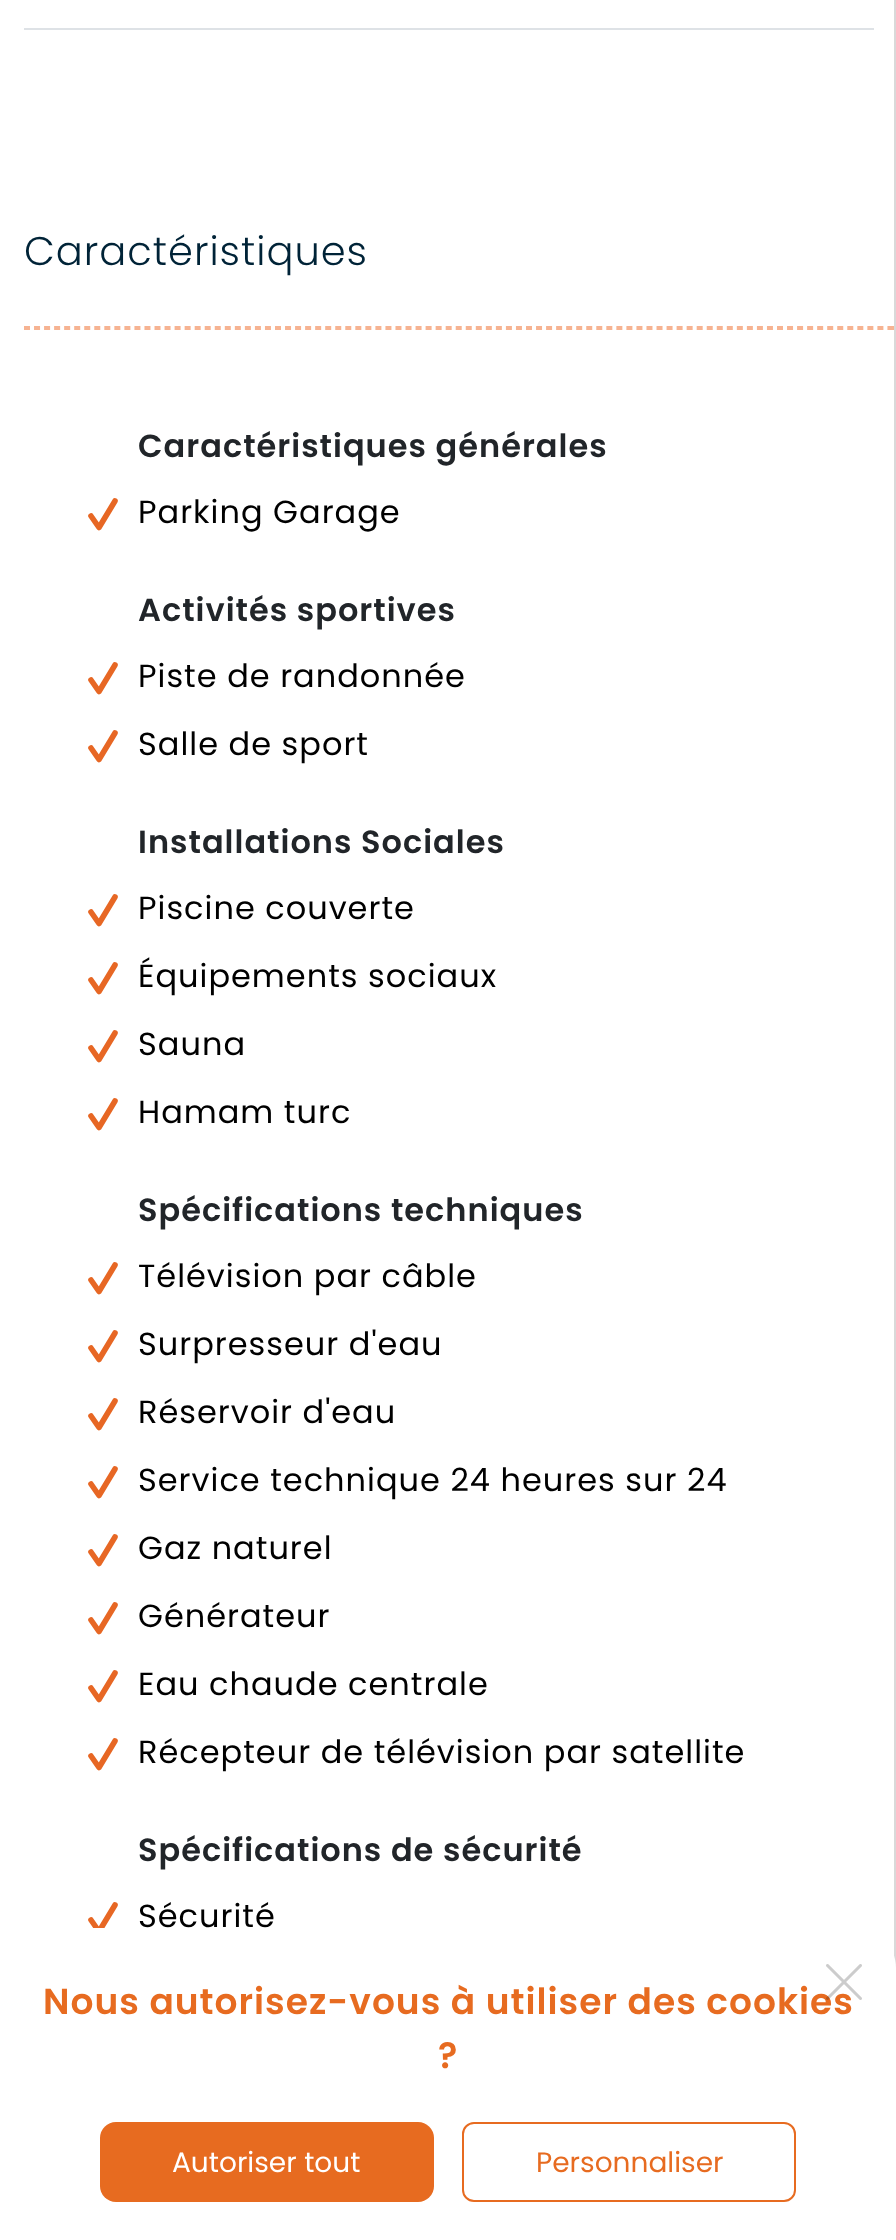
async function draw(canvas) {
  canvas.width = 896;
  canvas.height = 2240;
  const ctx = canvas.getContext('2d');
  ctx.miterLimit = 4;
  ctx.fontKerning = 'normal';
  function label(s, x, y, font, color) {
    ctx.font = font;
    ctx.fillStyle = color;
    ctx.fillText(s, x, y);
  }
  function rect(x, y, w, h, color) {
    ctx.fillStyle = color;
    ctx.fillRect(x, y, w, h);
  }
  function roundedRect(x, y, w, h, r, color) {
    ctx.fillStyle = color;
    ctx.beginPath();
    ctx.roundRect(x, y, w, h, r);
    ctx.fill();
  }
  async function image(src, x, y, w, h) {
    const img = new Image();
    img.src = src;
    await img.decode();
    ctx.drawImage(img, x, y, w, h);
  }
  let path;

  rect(0, 0, 896, 2240, '#fff');
  rect(24, 28, 850, 2, '#dee2e6');
  ctx.letterSpacing = '1px';
  label('Caractéristiques', 24, 265, '300 40px Poppins', '#002337');
  path = new Path2D('M24 327H894');
  ctx.strokeStyle = '#f6b392';
  ctx.lineWidth = 2;
  ctx.setLineDash([6, 4.04]);
  ctx.stroke(path);
  rect(892, 326, 2, 4, '#f6b392');
  path = new Path2D('M24 329H894');
  ctx.stroke(path);
  label('Caractéristiques générales', 138, 457, '600 32px Poppins', '#212529');
  path = new Path2D('M91 516L99 527.5L115 501');
  ctx.strokeStyle = '#e76724';
  ctx.lineWidth = 5.6;
  ctx.lineCap = 'round';
  ctx.lineJoin = 'round';
  ctx.setLineDash([]);
  ctx.stroke(path);
  label('Parking Garage', 138, 523, '32px Poppins', '#000');
  label('Activités sportives', 138, 621, '600 32px Poppins', '#212529');
  path = new Path2D('M91 680L99 691.5L115 665');
  ctx.stroke(path);
  label('Piste de randonnée', 138, 687, '32px Poppins', '#000');
  path = new Path2D('M91 748L99 759.5L115 733');
  ctx.stroke(path);
  label('Salle de sport', 138, 755, '32px Poppins', '#000');
  label('Installations Sociales', 138, 853, '600 32px Poppins', '#212529');
  path = new Path2D('M91 912L99 923.5L115 897');
  ctx.stroke(path);
  label('Piscine couverte', 138, 919, '32px Poppins', '#000');
  path = new Path2D('M91 980L99 991.5L115 965');
  ctx.stroke(path);
  label('Équipements sociaux', 138, 987, '32px Poppins', '#000');
  path = new Path2D('M91 1048L99 1059.5L115 1033');
  ctx.stroke(path);
  label('Sauna', 138, 1055, '32px Poppins', '#000');
  path = new Path2D('M91 1116L99 1127.5L115 1101');
  ctx.stroke(path);
  label('Hamam turc', 138, 1123, '32px Poppins', '#000');
  label('Spécifications techniques', 138, 1221, '600 32px Poppins', '#212529');
  path = new Path2D('M91 1280L99 1291.5L115 1265');
  ctx.stroke(path);
  label('Télévision par câble', 138, 1287, '32px Poppins', '#000');
  path = new Path2D('M91 1348L99 1359.5L115 1333');
  ctx.stroke(path);
  label('Surpresseur d\'eau', 138, 1355, '32px Poppins', '#000');
  path = new Path2D('M91 1416L99 1427.5L115 1401');
  ctx.stroke(path);
  label('Réservoir d\'eau', 138, 1423, '32px Poppins', '#000');
  path = new Path2D('M91 1484L99 1495.5L115 1469');
  ctx.stroke(path);
  label('Service technique 24 heures sur 24', 138, 1491, '32px Poppins', '#000');
  path = new Path2D('M91 1552L99 1563.5L115 1537');
  ctx.stroke(path);
  label('Gaz naturel', 138, 1559, '32px Poppins', '#000');
  path = new Path2D('M91 1620L99 1631.5L115 1605');
  ctx.stroke(path);
  label('Générateur', 138, 1627, '32px Poppins', '#000');
  path = new Path2D('M91 1688L99 1699.5L115 1673');
  ctx.stroke(path);
  label('Eau chaude centrale', 138, 1695, '32px Poppins', '#000');
  path = new Path2D('M91 1756L99 1767.5L115 1741');
  ctx.stroke(path);
  label('Récepteur de télévision par satellite', 138, 1763, '32px Poppins', '#000');
  label('Spécifications de sécurité', 138, 1861, '600 32px Poppins', '#212529');
  path = new Path2D('M91 1920L99 1931.5L115 1905');
  ctx.stroke(path);
  label('Sécurité', 138, 1927, '32px Poppins', '#000');
  rect(894, 0, 2, 1968, '#d9d9d9');
  ctx.fillStyle = '#fff';
  path = new Path2D('M40 1928H856C878 1928 896 1946 896 1968V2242H0V1968C0 1946 18 1928 40 1928Z');
  ctx.fill(path);
  label('Nous autorisez-vous à utiliser des cookies', 43, 2014, '600 36px Poppins', '#e76b20');
  await image('assets/img1.png', 826, 1964, 36, 36);
  label('?', 438, 2068, '600 36px Poppins', '#e76b20');
  roundedRect(100, 2122, 334, 80, 16, '#e76b20');
  ctx.letterSpacing = '0px';
  label('Autoriser tout', 172, 2172, '28px Poppins', '#fff');
  ctx.beginPath();
  ctx.roundRect(463, 2123, 332, 78, 11);
  ctx.strokeStyle = '#e76b20';
  ctx.lineWidth = 2;
  ctx.lineJoin = 'miter';
  ctx.stroke();
  label('Personnaliser', 536, 2172, '28px Poppins', '#e76b20');
}

draw(document.querySelector('canvas'));
